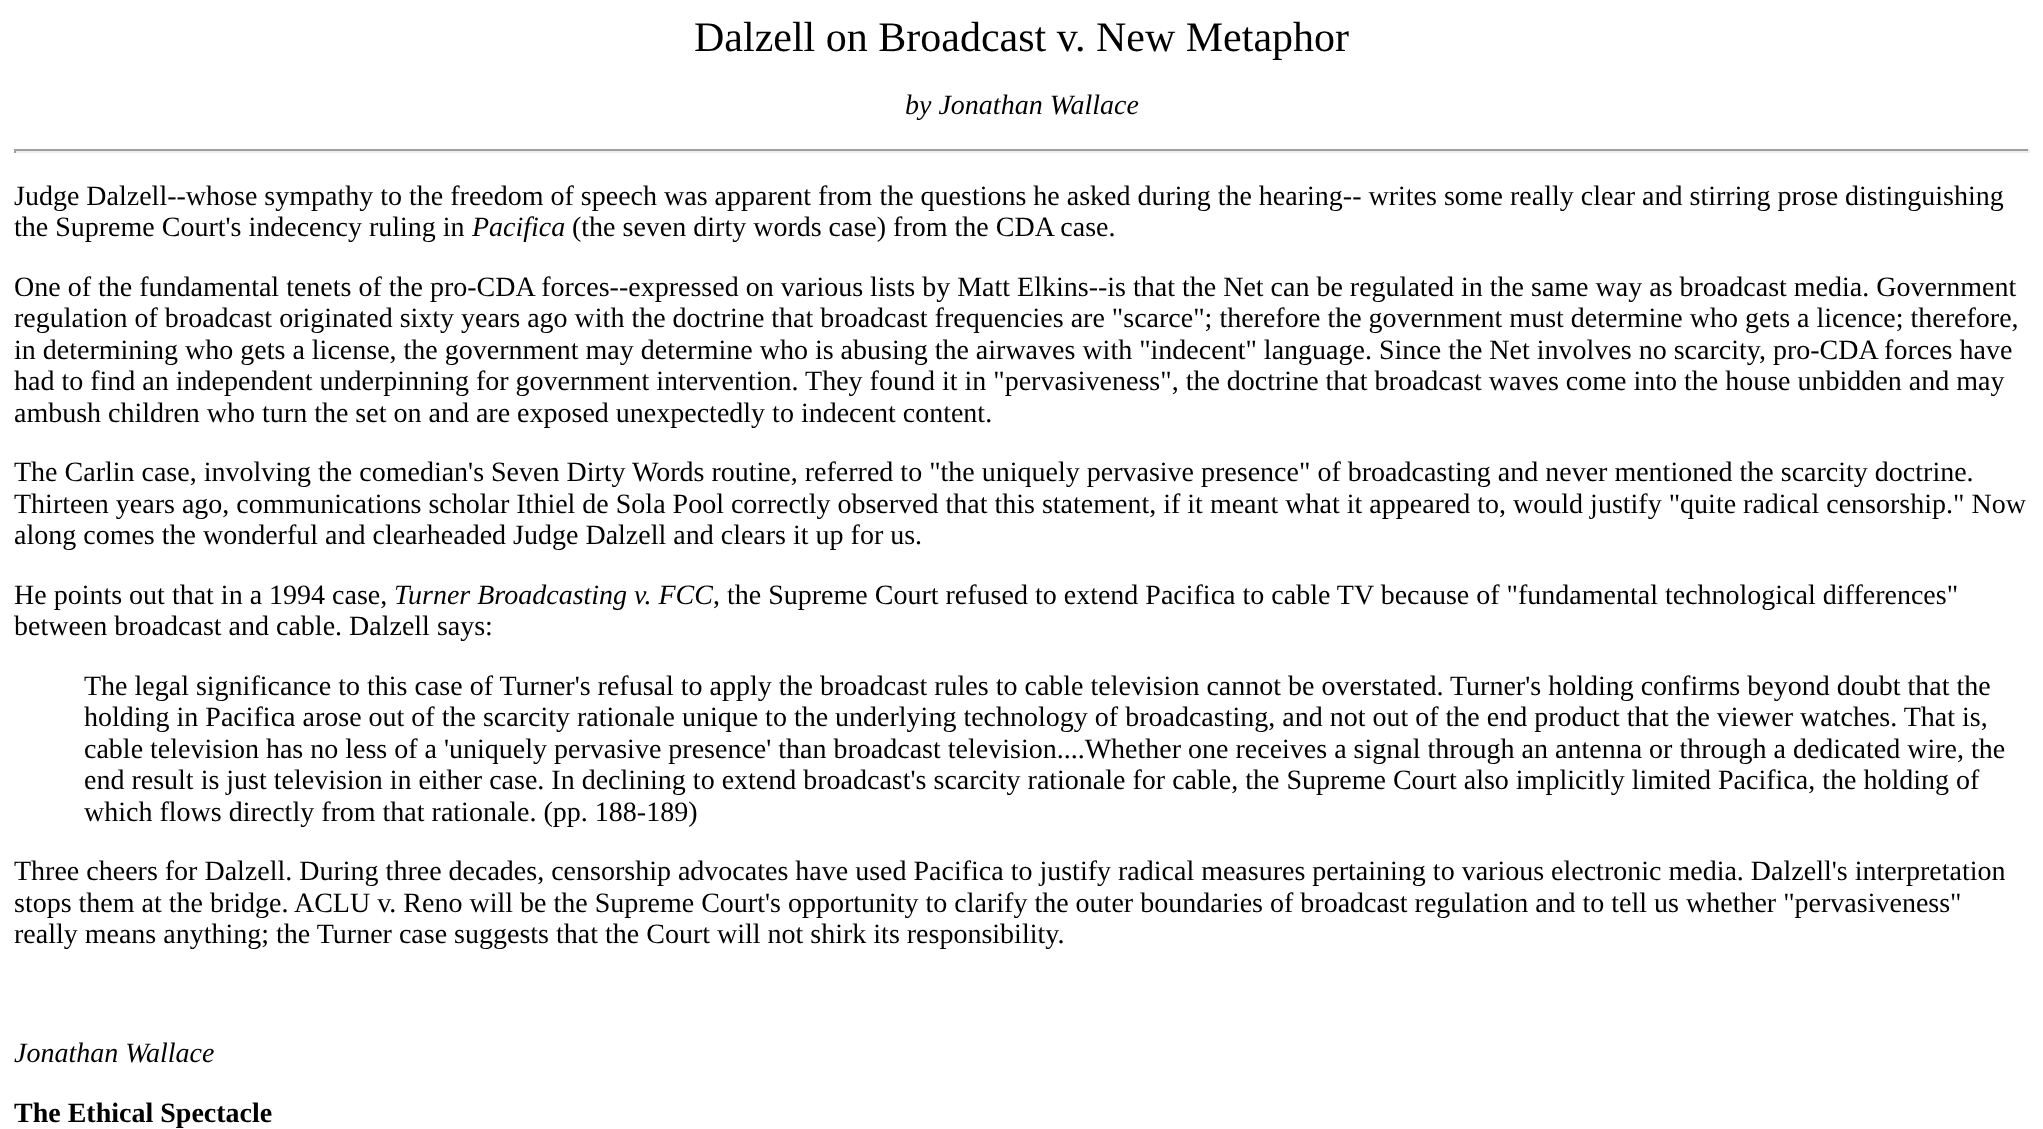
async function draw(canvas) {
  canvas.width = 2043;
  canvas.height = 1129;
  const ctx = canvas.getContext('2d');
  ctx.miterLimit = 4;
  ctx.fontKerning = 'normal';
  function label(s, x, y, font, color) {
    ctx.font = font;
    ctx.fillStyle = color;
    ctx.fillText(s, x, y);
  }
  function rect(x, y, w, h, color) {
    ctx.fillStyle = color;
    ctx.fillRect(x, y, w, h);
  }

  rect(0, 0, 2043, 1129, '#fff');
  label('Dalzell on Broadcast v. New Metaphor', 694, 51, '42px Liberation Serif', '#000');
  label('by Jonathan Wallace', 905, 114, 'italic 28px Liberation Serif', '#000');
  rect(14, 149, 2016, 2, '#9f9f9f');
  rect(2028, 149, 2, 4, '#eee');
  rect(14, 151, 2016, 2, '#eee');
  rect(14, 149, 2, 4, '#9f9f9f');
  label('Judge Dalzell--whose sympathy to the freedom of speech was apparent from the questions he asked during the hearing-- writes some really clear and stirring prose distinguishing', 14, 205, '28px Liberation Serif', '#000');
  label('the Supreme Court\'s indecency ruling in', 14, 236, '28px Liberation Serif', '#000');
  label('Pacifica', 472, 236, 'italic 28px Liberation Serif', '#000');
  label('(the seven dirty words case) from the CDA case.', 572, 236, '28px Liberation Serif', '#000');
  label('One of the fundamental tenets of the pro-CDA forces--expressed on various lists by Matt Elkins--is that the Net can be regulated in the same way as broadcast media. Government', 14, 296, '28px Liberation Serif', '#000');
  label('regulation of broadcast originated sixty years ago with the doctrine that broadcast frequencies are "scarce"; therefore the government must determine who gets a licence; therefore,', 14, 327, '28px Liberation Serif', '#000');
  label('in determining who gets a license, the government may determine who is abusing the airwaves with "indecent" language. Since the Net involves no scarcity, pro-CDA forces have', 14, 359, '28px Liberation Serif', '#000');
  label('had to find an independent underpinning for government intervention. They found it in "pervasiveness", the doctrine that broadcast waves come into the house unbidden and may', 14, 390, '28px Liberation Serif', '#000');
  label('ambush children who turn the set on and are exposed unexpectedly to indecent content.', 14, 422, '28px Liberation Serif', '#000');
  label('The Carlin case, involving the comedian\'s Seven Dirty Words routine, referred to "the uniquely pervasive presence" of broadcasting and never mentioned the scarcity doctrine.', 14, 481, '28px Liberation Serif', '#000');
  label('Thirteen years ago, communications scholar Ithiel de Sola Pool correctly observed that this statement, if it meant what it appeared to, would justify "quite radical censorship." Now', 14, 513, '28px Liberation Serif', '#000');
  label('along comes the wonderful and clearheaded Judge Dalzell and clears it up for us.', 14, 544, '28px Liberation Serif', '#000');
  label('He points out that in a 1994 case,', 14, 604, '28px Liberation Serif', '#000');
  label('Turner Broadcasting v. FCC', 394, 604, 'italic 28px Liberation Serif', '#000');
  label(', the Supreme Court refused to extend Pacifica to cable TV because of "fundamental technological differences"', 713, 604, '28px Liberation Serif', '#000');
  label('between broadcast and cable. Dalzell says:', 14, 635, '28px Liberation Serif', '#000');
  label('The legal significance to this case of Turner\'s refusal to apply the broadcast rules to cable television cannot be overstated. Turner\'s holding confirms beyond doubt that the', 84, 695, '28px Liberation Serif', '#000');
  label('holding in Pacifica arose out of the scarcity rationale unique to the underlying technology of broadcasting, and not out of the end product that the viewer watches. That is,', 84, 726, '28px Liberation Serif', '#000');
  label('cable television has no less of a \'uniquely pervasive presence\' than broadcast television....Whether one receives a signal through an antenna or through a dedicated wire, the', 84, 758, '28px Liberation Serif', '#000');
  label('end result is just television in either case. In declining to extend broadcast\'s scarcity rationale for cable, the Supreme Court also implicitly limited Pacifica, the holding of', 84, 789, '28px Liberation Serif', '#000');
  label('which flows directly from that rationale. (pp. 188-189)', 84, 821, '28px Liberation Serif', '#000');
  label('Three cheers for Dalzell. During three decades, censorship advocates have used Pacifica to justify radical measures pertaining to various electronic media. Dalzell\'s interpretation', 14, 880, '28px Liberation Serif', '#000');
  label('stops them at the bridge. ACLU v. Reno will be the Supreme Court\'s opportunity to clarify the outer boundaries of broadcast regulation and to tell us whether "pervasiveness"', 14, 912, '28px Liberation Serif', '#000');
  label('really means anything; the Turner case suggests that the Court will not shirk its responsibility.', 14, 943, '28px Liberation Serif', '#000');
  label('Jonathan Wallace', 14, 1062, 'italic 28px Liberation Serif', '#000');
  label('The Ethical Spectacle', 14, 1122, 'bold 28px Liberation Serif', '#000');
}

draw(document.querySelector('canvas'));
